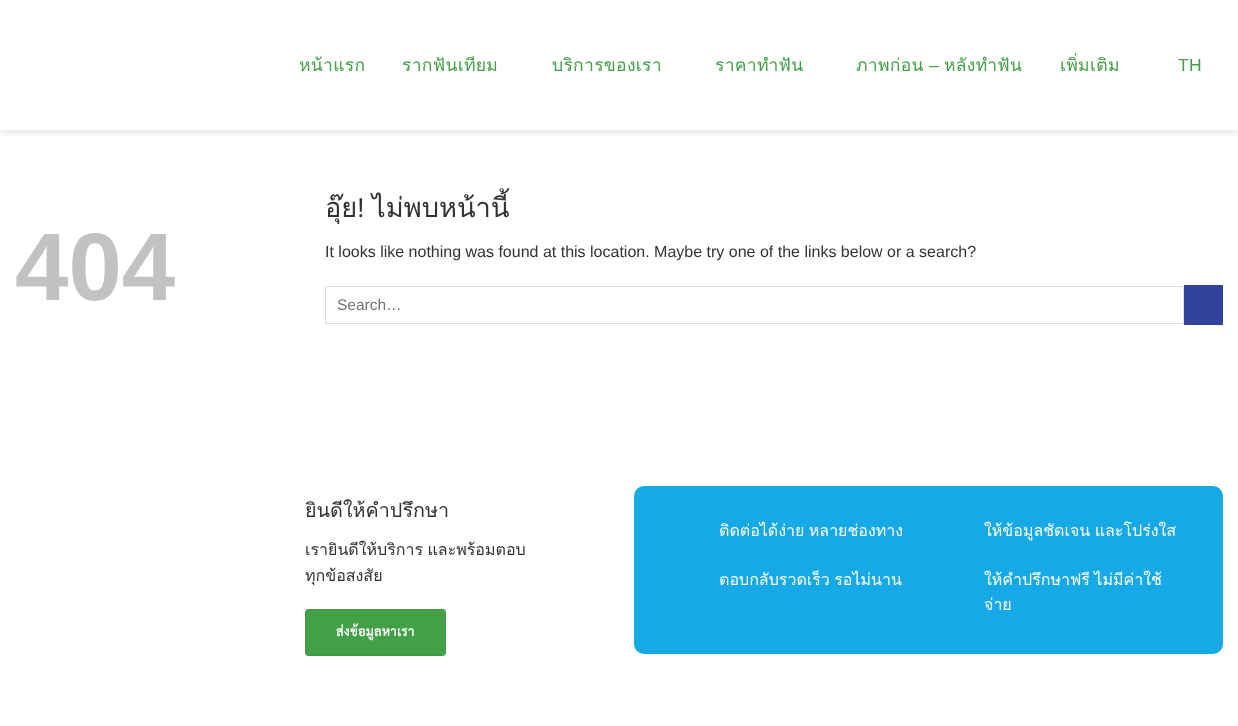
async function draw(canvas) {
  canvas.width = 1238;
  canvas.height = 726;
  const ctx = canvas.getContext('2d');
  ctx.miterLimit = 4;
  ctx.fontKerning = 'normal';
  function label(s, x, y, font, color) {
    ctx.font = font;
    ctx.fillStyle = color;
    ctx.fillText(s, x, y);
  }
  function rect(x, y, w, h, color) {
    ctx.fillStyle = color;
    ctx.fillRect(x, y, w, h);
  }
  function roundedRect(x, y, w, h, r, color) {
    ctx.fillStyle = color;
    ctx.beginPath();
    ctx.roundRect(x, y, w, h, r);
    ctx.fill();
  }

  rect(0, 0, 1238, 726, '#fff');
  ctx.save();
  ctx.beginPath();
  ctx.rect(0, 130, 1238, 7);
  ctx.clip();
  ctx.fillStyle = '#00000026';
  ctx.filter = 'blur(5px)';
  ctx.beginPath();
  ctx.rect(1, 1, 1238, 130);
  ctx.fill();
  ctx.filter = 'none';
  ctx.restore();
  ctx.letterSpacing = '0.3px';
  label('หน้าแรก', 299, 71, '17.5px Loma', '#42a146');
  label('รากฟันเทียม', 402, 71, '17.5px Loma', '#42a146');
  label('บริการของเรา', 552, 71, '17.5px Loma', '#42a146');
  label('ราคาทำฟัน', 715, 71, '17.5px Loma', '#42a146');
  label('ภาพก่อน', 856, 71, '17.5px Loma', '#42a146');
  label('–', 929, 71, '17.5px Liberation Sans', '#42a146');
  label('หลังทำฟัน', 944, 71, '17.5px Loma', '#42a146');
  label('เพิ่มเติม', 1060, 71, '17.5px Loma', '#42a146');
  label('TH', 1178, 71, '17.5px Liberation Sans', '#42a146');
  ctx.letterSpacing = '0px';
  label('404', 15, 300, 'bold 96px Liberation Sans', '#c2c2c2');
  label('อุ๊ย', 325, 217, '27.25px Loma', '#333');
  label('!', 357, 217, '27.25px Liberation Sans', '#333');
  label('ไม่พบหน้านี้', 372, 217, '27.25px Loma', '#333');
  label('It looks like nothing was found at this location. Maybe try one of the links below or a search?', 325, 257, '16px Liberation Sans', '#333');
  ctx.strokeStyle = '#ddd';
  ctx.strokeRect(325.5, 286.5, 858, 37);
  label('Search…', 337, 310, '15.5px Liberation Sans', '#757575');
  ctx.fillStyle = '#32419c';
  ctx.beginPath();
  ctx.rect(1184.5, 285.5, 38, 39);
  ctx.fill();
  ctx.strokeStyle = '#303e94';
  ctx.stroke();
  label('ยินดีให้คำปรึกษา', 305, 517, '19.75px Loma', '#333');
  ctx.wordSpacing = '-1px';
  label('เรายินดีให้บริการ และพร้อมตอบ', 305, 555, '16px Loma', '#333');
  ctx.wordSpacing = '0px';
  label('ทุกข้อสงสัย', 305, 581, '16px Loma', '#333');
  roundedRect(305, 609, 141, 47, 4, '#42a146');
  ctx.strokeStyle = '#0000000d';
  ctx.strokeRect(305.5, 609.5, 140, 46);
  ctx.letterSpacing = '0.4px';
  label('ส่งข้อมูลหาเรา', 336, 636, 'bold 12.75px Sarabun', '#fff');
  roundedRect(634, 486, 589, 168, 10, '#17a9e6');
  ctx.letterSpacing = '0px';
  ctx.wordSpacing = '-1px';
  label('ติดต่อได้ง่าย หลายช่องทาง', 719, 536, '16px Loma', '#fff');
  label('ตอบกลับรวดเร็ว รอไม่นาน', 719, 585, '16px Loma', '#fff');
  label('ให้ข้อมูลชัดเจน และโปร่งใส', 984, 536, '16px Loma', '#fff');
  label('ให้คำปรึกษาฟรี ไม่มีค่าใช้', 984, 585, '16px Loma', '#fff');
  ctx.wordSpacing = '0px';
  label('จ่าย', 984, 610, '16px Loma', '#fff');
}

draw(document.querySelector('canvas'));
